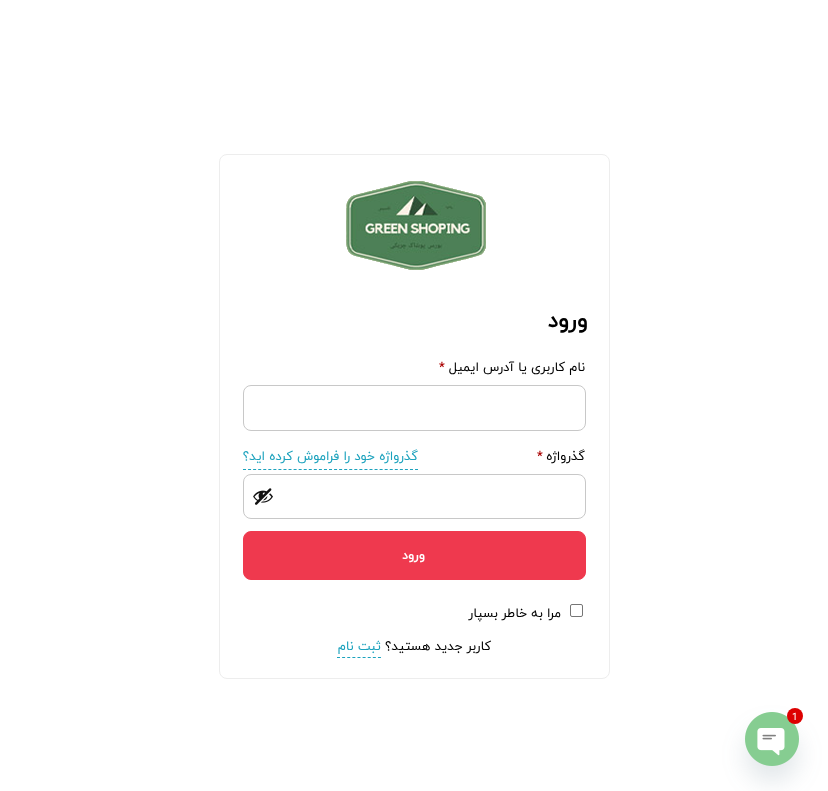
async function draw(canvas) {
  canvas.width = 828;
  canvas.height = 791;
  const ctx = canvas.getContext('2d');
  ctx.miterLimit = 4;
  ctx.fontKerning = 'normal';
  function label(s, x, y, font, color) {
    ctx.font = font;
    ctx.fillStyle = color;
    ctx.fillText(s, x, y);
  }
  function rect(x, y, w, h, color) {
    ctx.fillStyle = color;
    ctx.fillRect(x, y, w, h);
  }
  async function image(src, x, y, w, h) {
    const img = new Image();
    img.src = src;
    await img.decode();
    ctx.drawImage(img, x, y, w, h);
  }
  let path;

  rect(0, 0, 828, 791, '#fff');
  ctx.beginPath();
  ctx.roundRect(219.5, 154.5, 390, 524, 7.5);
  ctx.strokeStyle = '#ededed';
  ctx.stroke();
  await image('assets/img1.png', 346, 181, 140, 89);
  ctx.direction = 'rtl';
  label('ورود', 588, 327, 'bold 23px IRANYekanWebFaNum', '#000');
  label('نام کاربری یا آدرس ایمیل', 585, 371, '13px IRANYekanWebFaNum', '#000');
  ctx.direction = 'ltr';
  label('*', 439, 371, 'bold 13px IRANYekanWebFaNum', '#a00');
  ctx.beginPath();
  ctx.roundRect(243.5, 385.5, 342, 45, 7.5);
  ctx.strokeStyle = '#c8c8c8';
  ctx.stroke();
  ctx.direction = 'rtl';
  label('گذرواژه', 585, 460, '13px IRANYekanWebFaNum', '#000');
  ctx.direction = 'ltr';
  label('*', 537, 460, 'bold 13px IRANYekanWebFaNum', '#a00');
  path = new Path2D('M243 469.5H418');
  ctx.strokeStyle = '#1ca2bd';
  ctx.setLineDash([3, 2.06]);
  ctx.stroke(path);
  ctx.direction = 'rtl';
  label('گذرواژه خود را فراموش کرده اید؟', 418, 460, '13px IRANYekanWebFaNum', '#1ca2bd');
  ctx.beginPath();
  ctx.roundRect(243.5, 474.5, 342, 44, 7.5);
  ctx.strokeStyle = '#c8c8c8';
  ctx.setLineDash([]);
  ctx.stroke();
  await image('assets/img2.png', 253, 488, 20, 17);
  ctx.fillStyle = '#ef394e';
  ctx.beginPath();
  ctx.roundRect(243.5, 531.5, 342, 48, 7.5);
  ctx.fill();
  ctx.strokeStyle = '#ef394e';
  ctx.stroke();
  label('ورود', 425, 559, 'bold 13px IRANYekanWebFaNum', '#fff');
  ctx.beginPath();
  ctx.roundRect(570.5, 604.5, 12, 12, 1.5);
  ctx.strokeStyle = '#767676';
  ctx.stroke();
  label('مرا به خاطر بسپار', 561, 617, '13px IRANYekanWebFaNum', '#000');
  label('کاربر جدید هستید؟', 491, 650, '13px IRANYekanWebFaNum', '#000');
  label('ثبت نام', 381, 650, '13px IRANYekanWebFaNum', '#1ca2bd');
  path = new Path2D('M337 657.5H381');
  ctx.strokeStyle = '#1ca2bd';
  ctx.setLineDash([3, 2.12]);
  ctx.stroke(path);
  ctx.fillStyle = '#49687e29';
  ctx.filter = 'blur(12px)';
  ctx.beginPath();
  ctx.roundRect(745, 728, 54, 54, 27);
  ctx.fill();
  ctx.filter = 'none';
  await image('assets/img3.png', 745, 712, 54, 54);
  ctx.fillStyle = '#d00';
  ctx.beginPath();
  ctx.arc(795, 716, 8, 0, 2 * Math.PI);
  ctx.fill();
  ctx.direction = 'ltr';
  label('1', 792, 720, '10px Roboto', '#fff');
}

draw(document.querySelector('canvas'));
